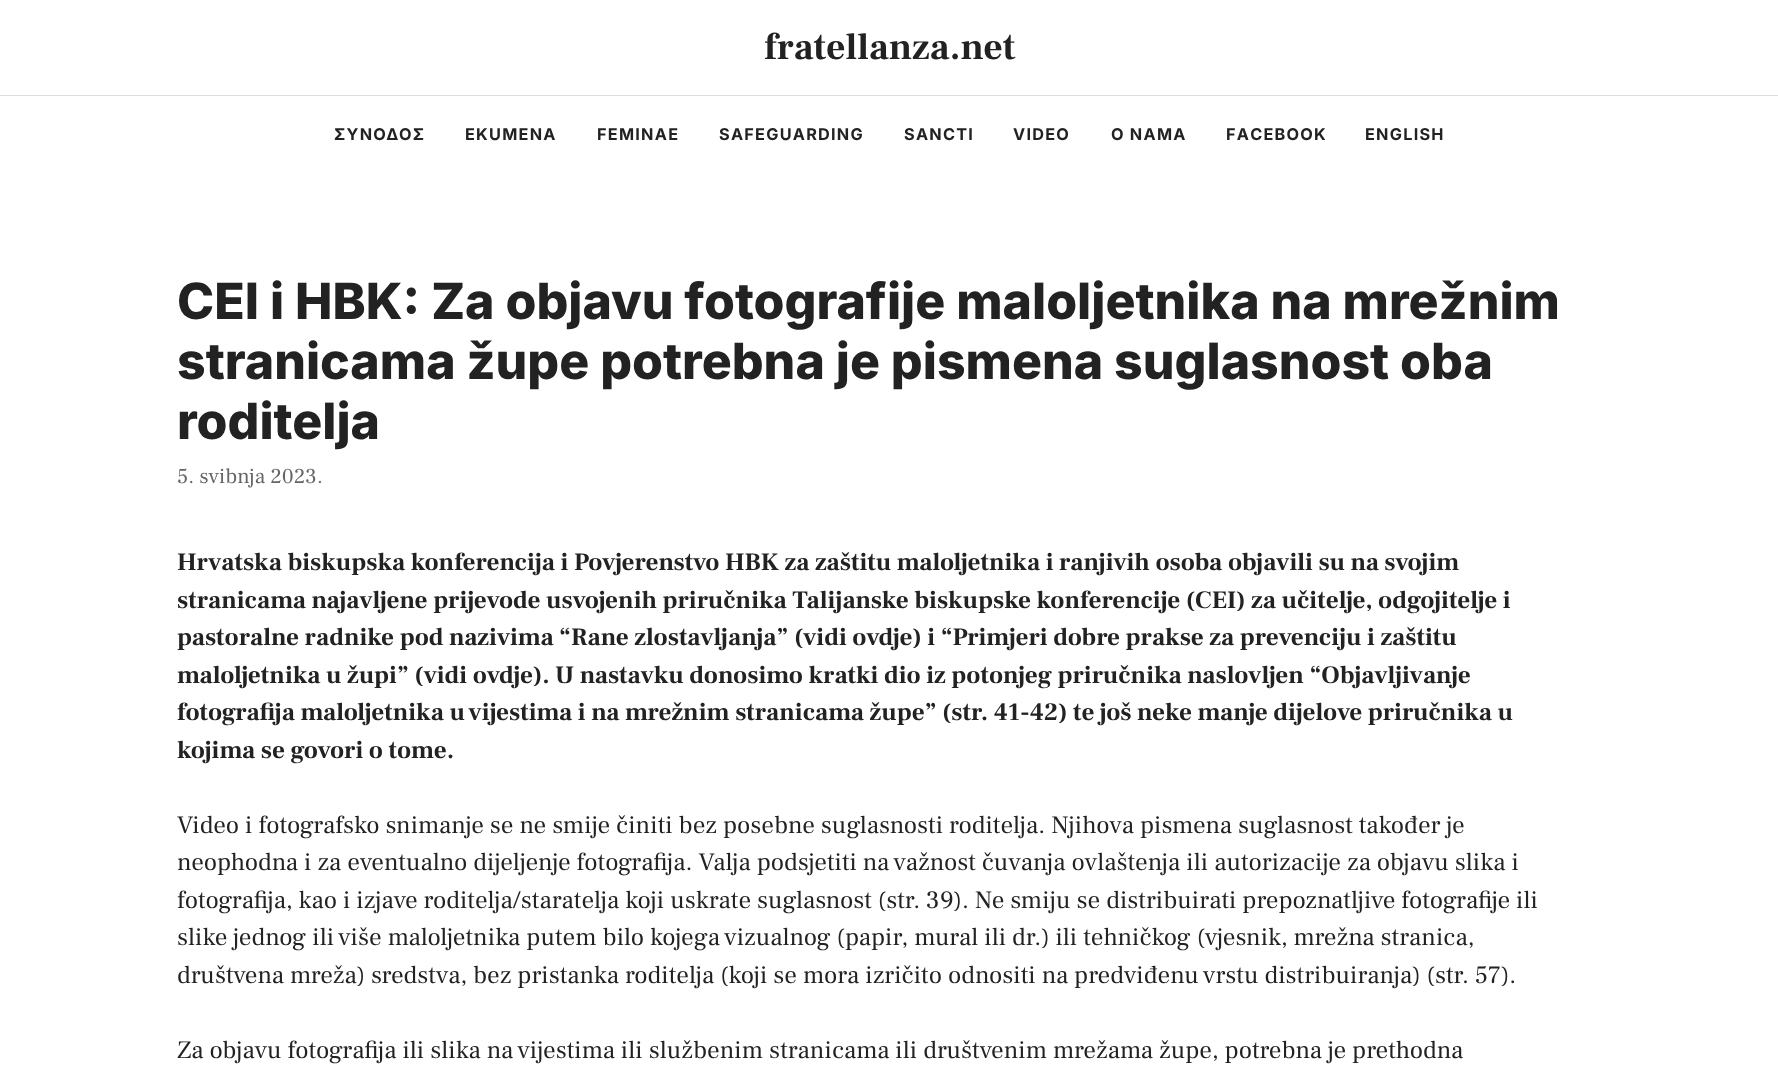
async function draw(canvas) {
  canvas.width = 1778;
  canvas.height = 1081;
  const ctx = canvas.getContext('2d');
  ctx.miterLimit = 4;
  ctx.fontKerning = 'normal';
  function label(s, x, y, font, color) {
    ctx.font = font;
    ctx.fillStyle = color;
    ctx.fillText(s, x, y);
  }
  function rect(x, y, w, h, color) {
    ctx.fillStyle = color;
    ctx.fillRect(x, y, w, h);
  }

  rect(0, 0, 1778, 1081, '#fff');
  rect(0, 95, 1778, 1, '#ddd');
  label('fratellanza.net', 764, 59, 'bold 37.5px Frank Ruhl Libre', '#222');
  ctx.letterSpacing = '1.25px';
  label('ΣΥΝΟΔΟΣ', 334, 140, 'bold 16.25px Inter', '#222');
  label('EKUMENA', 465, 140, 'bold 16.25px Inter', '#222');
  label('FEMINAE', 597, 140, 'bold 16.25px Inter', '#222');
  label('SAFEGUARDING', 719, 140, 'bold 16.25px Inter', '#222');
  label('SANCTI', 904, 140, 'bold 16.25px Inter', '#222');
  label('VIDEO', 1013, 140, 'bold 16.25px Inter', '#222');
  label('O NAMA', 1111, 140, 'bold 16.25px Inter', '#222');
  label('FACEBOOK', 1226, 140, 'bold 16.25px Inter', '#222');
  label('ENGLISH', 1365, 140, 'bold 16.25px Inter', '#222');
  ctx.letterSpacing = '0px';
  label('CEI i HBK: Za objavu fotografije maloljetnika na mrežnim', 177, 319, '800 50px Inter', '#222');
  label('stranicama župe potrebna je pismena suglasnost oba', 177, 379, '800 50px Inter', '#222');
  label('roditelja', 177, 439, '800 50px Inter', '#222');
  label('5. svibnja 2023.', 177, 483, '21.25px Frank Ruhl Libre', '#666');
  label('Hrvatska biskupska konferencija i Povjerenstvo HBK za zaštitu maloljetnika i ranjivih osoba', 177, 570, 'bold 25px Frank Ruhl Libre', '#222');
  label('objavili su na svojim', 1228, 570, 'bold 25px Frank Ruhl Libre', '#222');
  label('stranicama najavljene prijevode usvojenih priručnika Talijanske biskupske konferencije (CEI) za učitelje, odgojitelje i', 177, 608, 'bold 25px Frank Ruhl Libre', '#222');
  label('pastoralne radnike pod nazivima “Rane zlostavljanja” (vidi ovdje) i “Primjeri dobre prakse za prevenciju i zaštitu', 177, 645, 'bold 25px Frank Ruhl Libre', '#222');
  label('maloljetnika u župi” (vidi ovdje).', 177, 683, 'bold 25px Frank Ruhl Libre', '#222');
  label('U nastavku donosimo kratki dio iz potonjeg priručnika naslovljen “Objavljivanje', 555, 683, 'bold 25px Frank Ruhl Libre', '#222');
  label('fotografija maloljetnika u vijestima i na mrežnim stranicama župe”', 177, 720, 'bold 25px Frank Ruhl Libre', '#222');
  label('(str. 41-42) te još neke manje dijelove priručnika u', 942, 720, 'bold 25px Frank Ruhl Libre', '#222');
  label('kojima se govori o tome.', 177, 758, 'bold 25px Frank Ruhl Libre', '#222');
  label('Video i fotografsko snimanje se ne smije činiti bez posebne suglasnosti roditelja. Njihova pismena suglasnost također je', 177, 833, '25px Frank Ruhl Libre', '#222');
  label('neophodna i za eventualno dijeljenje fotografija. Valja podsjetiti na važnost čuvanja ovlaštenja ili autorizacije za objavu slika i', 177, 870, '25px Frank Ruhl Libre', '#222');
  label('fotografija, kao i izjave roditelja/staratelja koji uskrate suglasnost (str. 39). Ne smiju se distribuirati prepoznatljive fotografije ili', 177, 908, '25px Frank Ruhl Libre', '#222');
  label('slike jednog ili više maloljetnika putem bilo kojega vizualnog (papir, mural ili dr.) ili tehničkog (vjesnik, mrežna stranica,', 177, 945, '25px Frank Ruhl Libre', '#222');
  label('društvena mreža) sredstva, bez pristanka roditelja (koji se mora izričito odnositi na predviđenu vrstu distribuiranja) (str. 57).', 177, 983, '25px Frank Ruhl Libre', '#222');
  label('Za objavu fotografija ili slika na vijestima ili službenim stranicama ili društvenim mrežama župe, potrebna je prethodna', 177, 1058, '25px Frank Ruhl Libre', '#222');
}

draw(document.querySelector('canvas'));
